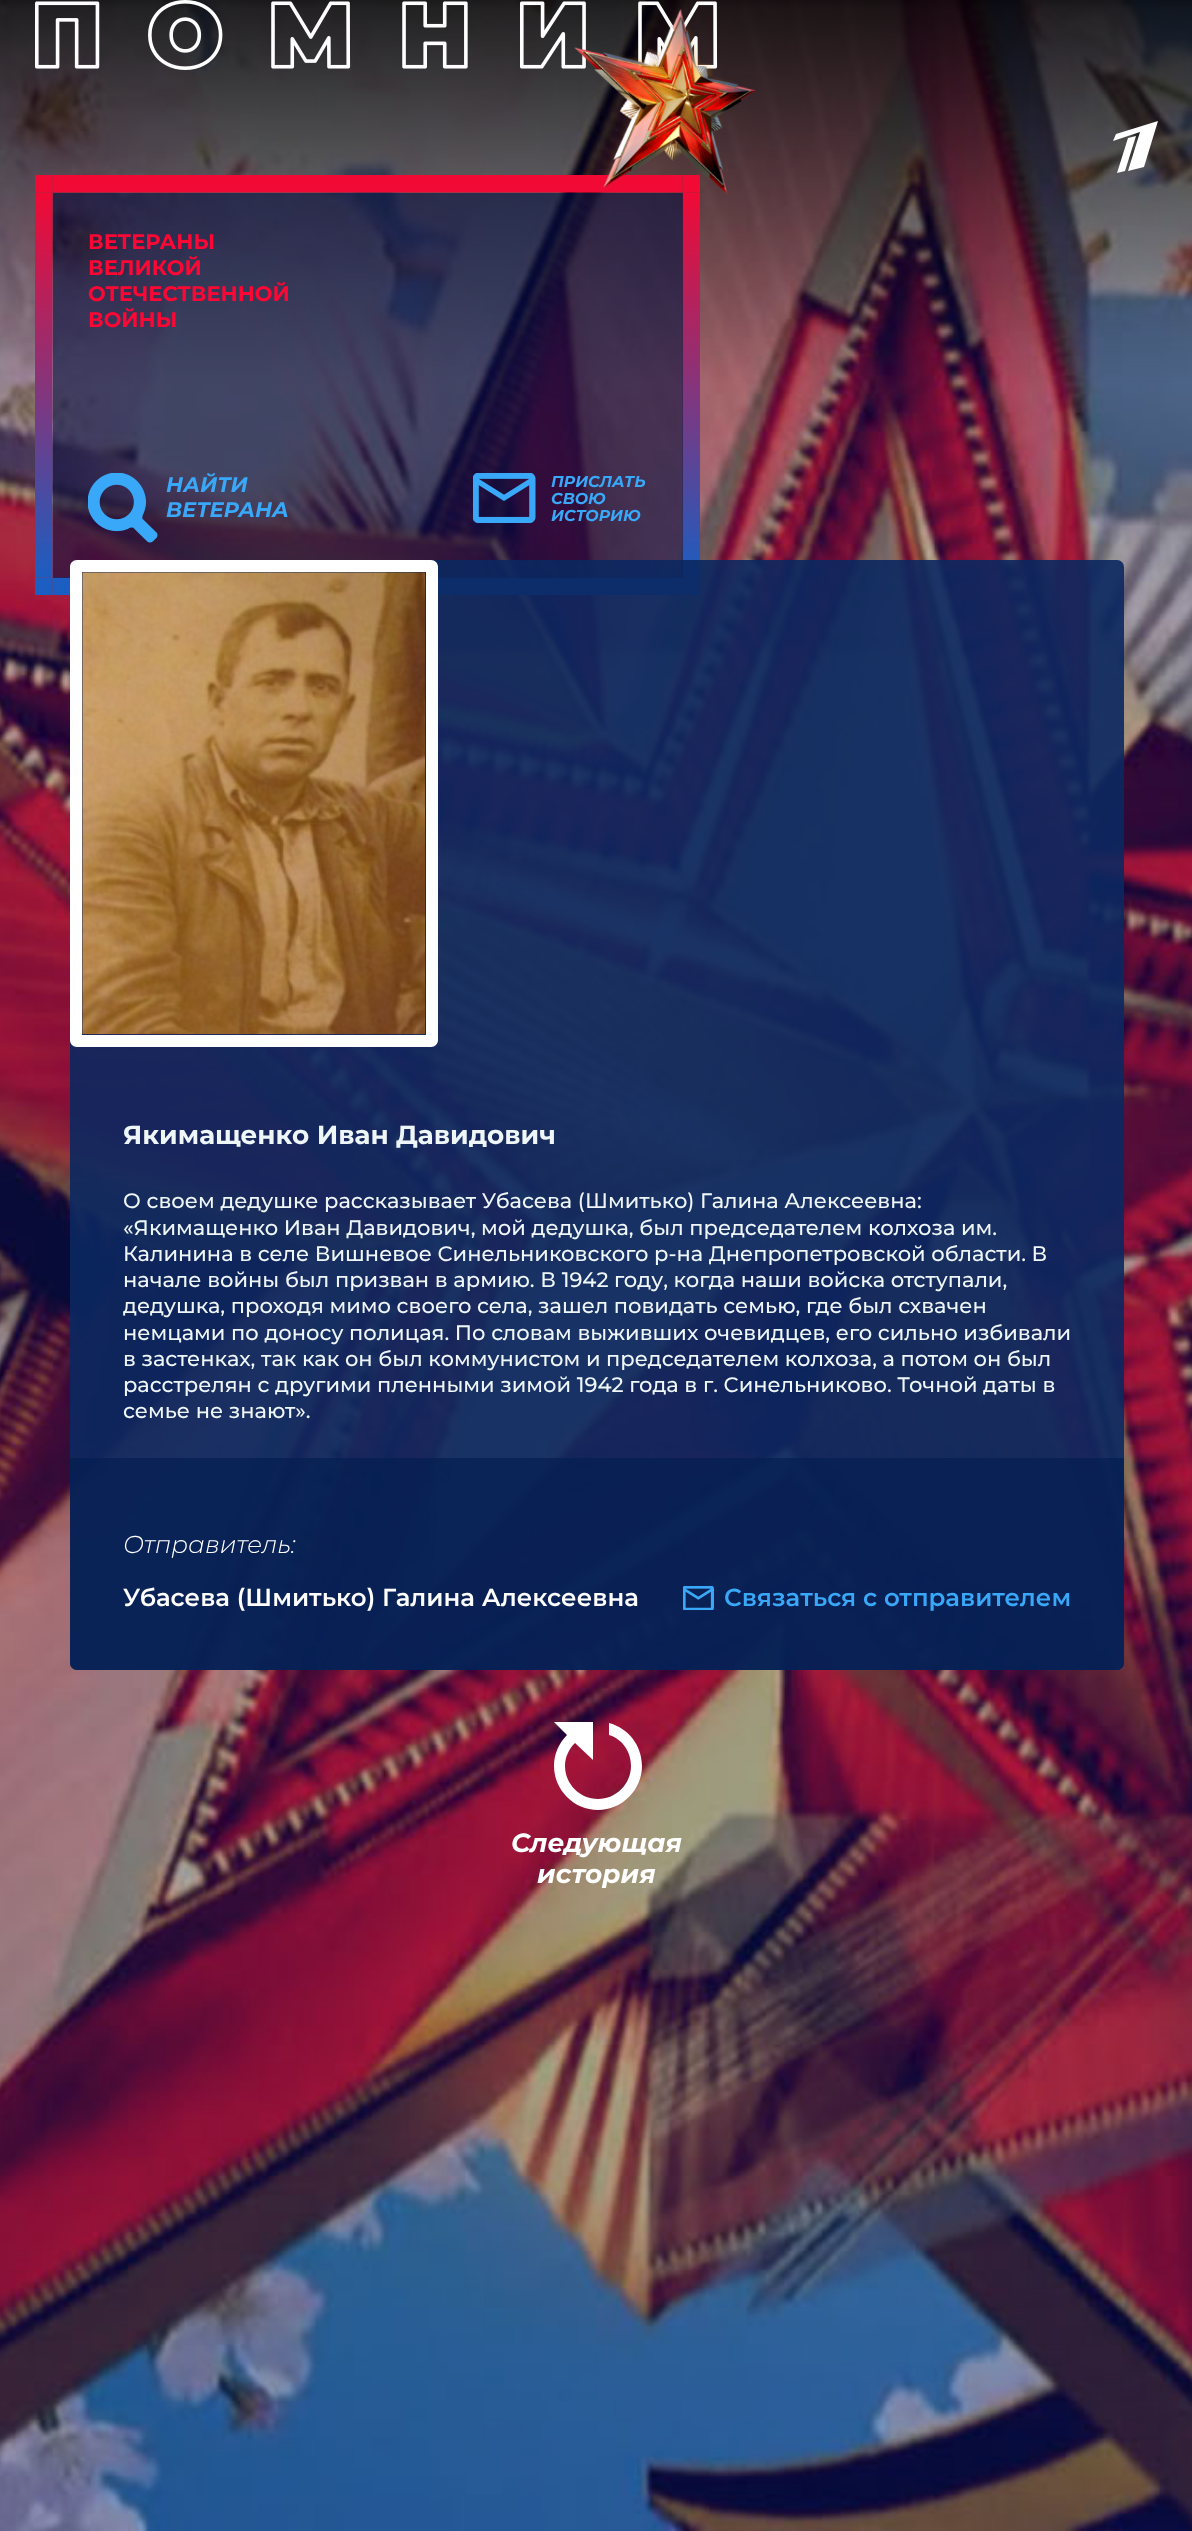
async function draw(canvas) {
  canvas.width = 1192;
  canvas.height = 2531;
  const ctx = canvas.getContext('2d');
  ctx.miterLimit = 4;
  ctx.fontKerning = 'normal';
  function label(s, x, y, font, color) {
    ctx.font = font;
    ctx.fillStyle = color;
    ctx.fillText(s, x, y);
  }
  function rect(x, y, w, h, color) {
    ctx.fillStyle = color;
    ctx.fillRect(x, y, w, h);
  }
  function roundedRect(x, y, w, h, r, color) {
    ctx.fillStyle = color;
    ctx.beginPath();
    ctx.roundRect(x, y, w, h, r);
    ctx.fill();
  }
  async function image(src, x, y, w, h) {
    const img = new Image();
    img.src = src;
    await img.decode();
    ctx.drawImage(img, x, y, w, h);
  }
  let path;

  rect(0, 0, 1192, 2531, '#fff');
  await image('assets/img1.png', 0, 0, 1192, 2531);
  await image('assets/img2.png', 35, 0, 683, 70);
  await image('assets/img4.png', 35, 175, 665, 420);
  rect(53, 193, 630, 385, '#070d4099');
  await image('assets/img3.png', 574, 9, 182, 186);
  ctx.fillStyle = '#fff';
  path = new Path2D('M1113 141L1116 134L1158 121L1144 167L1128 171L1140 132ZM1117 173L1128 138L1136 136L1125 171Z');
  ctx.fill(path, 'evenodd');
  label('ВЕТЕРАНЫ', 88, 249, 'bold 21px Montserrat', '#ff0734');
  label('ВЕЛИКОЙ', 88, 275, 'bold 21px Montserrat', '#ff0734');
  label('ОТЕЧЕСТВЕННОЙ', 88, 301, 'bold 21px Montserrat', '#ff0734');
  label('ВОЙНЫ', 88, 327, 'bold 21px Montserrat', '#ff0734');
  await image('assets/img5.png', 88, 473, 70, 70);
  label('НАЙТИ', 166, 492, 'italic bold 21px Montserrat', '#3aa8f8');
  label('ВЕТЕРАНА', 166, 517, 'italic bold 21px Montserrat', '#3aa8f8');
  await image('assets/img6.png', 473, 473, 63, 50);
  label('ПРИСЛАТЬ', 551, 487, 'italic bold 15.75px Montserrat', '#3aa8f8');
  label('СВОЮ', 551, 504, 'italic bold 15.75px Montserrat', '#3aa8f8');
  label('ИСТОРИЮ', 551, 521, 'italic bold 15.75px Montserrat', '#3aa8f8');
  roundedRect(70, 560, 1054, 1110, 7, '#0b2861e6');
  ctx.fillStyle = '#fff';
  path = new Path2D('M77 560C73 560 70 563 70 567V1040C70 1044 73 1047 77 1047H431C435 1047 438 1044 438 1040V567C438 563 435 560 431 560ZM82 572V1035H426V572Z');
  ctx.fill(path, 'evenodd');
  await image('assets/img7.png', 82, 572, 344, 463);
  label('Якимащенко Иван Давидович', 123, 1144, 'bold 26.25px Montserrat', '#eff6f8');
  label('О своем дедушке рассказывает Убасева (Шмитько) Галина Алексеевна:', 123, 1208, '500 21px Montserrat', '#eff6f8');
  label('«Якимащенко Иван Давидович, мой дедушка, был председателем колхоза им.', 123, 1235, '500 21px Montserrat', '#eff6f8');
  label('Калинина в селе Вишневое Синельниковского р-на Днепропетровской области. В', 123, 1261, '500 21px Montserrat', '#eff6f8');
  label('начале войны был призван в армию. В 1942 году, когда наши войска отступали,', 123, 1287, '500 21px Montserrat', '#eff6f8');
  label('дедушка, проходя мимо своего села, зашел повидать семью, где был схвачен', 123, 1313, '500 21px Montserrat', '#eff6f8');
  label('немцами по доносу полицая. По словам выживших очевидцев, его сильно избивали', 123, 1340, '500 21px Montserrat', '#eff6f8');
  label('в застенках, так как он был коммунистом и председателем колхоза, а потом он был', 123, 1366, '500 21px Montserrat', '#eff6f8');
  label('расстрелян с другими пленными зимой 1942 года в г. Синельниково. Точной даты в', 123, 1392, '500 21px Montserrat', '#eff6f8');
  label('семье не знают».', 123, 1418, '500 21px Montserrat', '#eff6f8');
  ctx.fillStyle = '#041e51b3';
  ctx.beginPath();
  ctx.roundRect(70, 1458, 1054, 212, [0, 0, 7, 7]);
  ctx.fill();
  label('Отправитель:', 123, 1553, 'italic 300 24.5px Montserrat', '#fff');
  label('Убасева (Шмитько) Галина Алексеевна', 123, 1606, '600 24.5px Montserrat', '#fff');
  await image('assets/img8.png', 683, 1586, 31, 24);
  label('Связаться с отправителем', 724, 1606, '600 24.5px Montserrat', '#3aa8f8');
  ctx.fillStyle = '#fff';
  path = new Path2D('M567 1735C559 1743 554 1754 554 1766C554 1790 574 1810 598 1810C622 1810 642 1790 642 1766C642 1745 628 1728 609 1723V1735C622 1739 631 1751 631 1766C631 1784 616 1799 598 1799C580 1799 565 1784 565 1766C565 1757 569 1749 575 1743L593 1760V1722H554Z');
  ctx.fill(path);
  label('Следующая', 511, 1852, 'italic bold 26.25px Montserrat', '#fff');
  label('история', 537, 1883, 'italic bold 26.25px Montserrat', '#fff');
}

draw(document.querySelector('canvas'));
